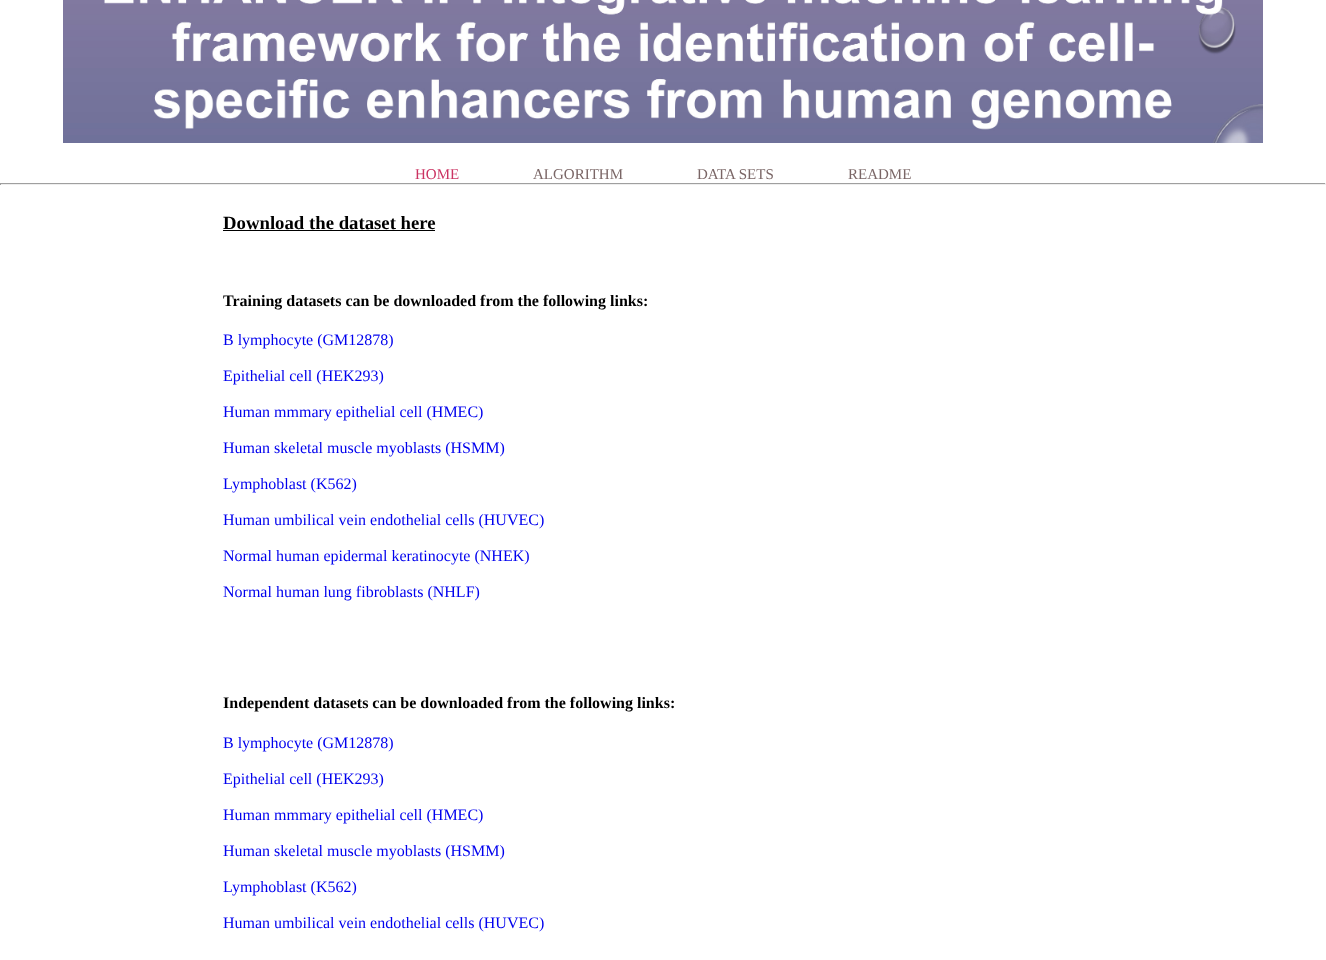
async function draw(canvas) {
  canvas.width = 1326;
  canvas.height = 960;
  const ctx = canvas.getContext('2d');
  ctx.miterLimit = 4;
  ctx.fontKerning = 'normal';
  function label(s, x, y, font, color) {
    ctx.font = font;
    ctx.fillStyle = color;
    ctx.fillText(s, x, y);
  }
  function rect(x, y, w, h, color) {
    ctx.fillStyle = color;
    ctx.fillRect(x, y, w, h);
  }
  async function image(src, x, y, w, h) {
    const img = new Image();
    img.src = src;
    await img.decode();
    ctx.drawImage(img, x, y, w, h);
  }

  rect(0, 0, 1326, 960, '#fff');
  await image('assets/img1.png', 63, 0, 1200, 143);
  label('HOME', 415, 179, '15px Liberation Serif', '#cb3362');
  label('ALGORITHM', 533, 179, '15px Liberation Serif', '#7a6666');
  label('DATA SETS', 697, 179, '15px Liberation Serif', '#7a6666');
  label('README', 848, 179, '15px Liberation Serif', '#7a6666');
  rect(0, 183, 1326, 1, '#9f9f9f');
  rect(1325, 183, 1, 2, '#eee');
  rect(0, 184, 1326, 1, '#eee');
  rect(0, 183, 1, 2, '#9f9f9f');
  label('Download the dataset here', 223, 229, 'bold 18.75px Liberation Serif', '#000');
  rect(223, 230, 212, 1, '#000');
  label('Training datasets can be downloaded from the following links:', 223, 306, 'bold 16px Liberation Serif', '#000');
  label('B lymphocyte (GM12878)', 223, 345, '16px Liberation Serif', '#00e');
  label('Epithelial cell (HEK293)', 223, 381, '16px Liberation Serif', '#00e');
  label('Human mmmary epithelial cell (HMEC)', 223, 417, '16px Liberation Serif', '#00e');
  label('Human skeletal muscle myoblasts (HSMM)', 223, 453, '16px Liberation Serif', '#00e');
  label('Lymphoblast (K562)', 223, 489, '16px Liberation Serif', '#00e');
  label('Human umbilical vein endothelial cells (HUVEC)', 223, 525, '16px Liberation Serif', '#00e');
  label('Normal human epidermal keratinocyte (NHEK)', 223, 561, '16px Liberation Serif', '#00e');
  label('Normal human lung fibroblasts (NHLF)', 223, 597, '16px Liberation Serif', '#00e');
  label('Independent datasets can be downloaded from the following links:', 223, 708, 'bold 16px Liberation Serif', '#000');
  label('B lymphocyte (GM12878)', 223, 748, '16px Liberation Serif', '#00e');
  label('Epithelial cell (HEK293)', 223, 784, '16px Liberation Serif', '#00e');
  label('Human mmmary epithelial cell (HMEC)', 223, 820, '16px Liberation Serif', '#00e');
  label('Human skeletal muscle myoblasts (HSMM)', 223, 856, '16px Liberation Serif', '#00e');
  label('Lymphoblast (K562)', 223, 892, '16px Liberation Serif', '#00e');
  label('Human umbilical vein endothelial cells (HUVEC)', 223, 928, '16px Liberation Serif', '#00e');
}

draw(document.querySelector('canvas'));
